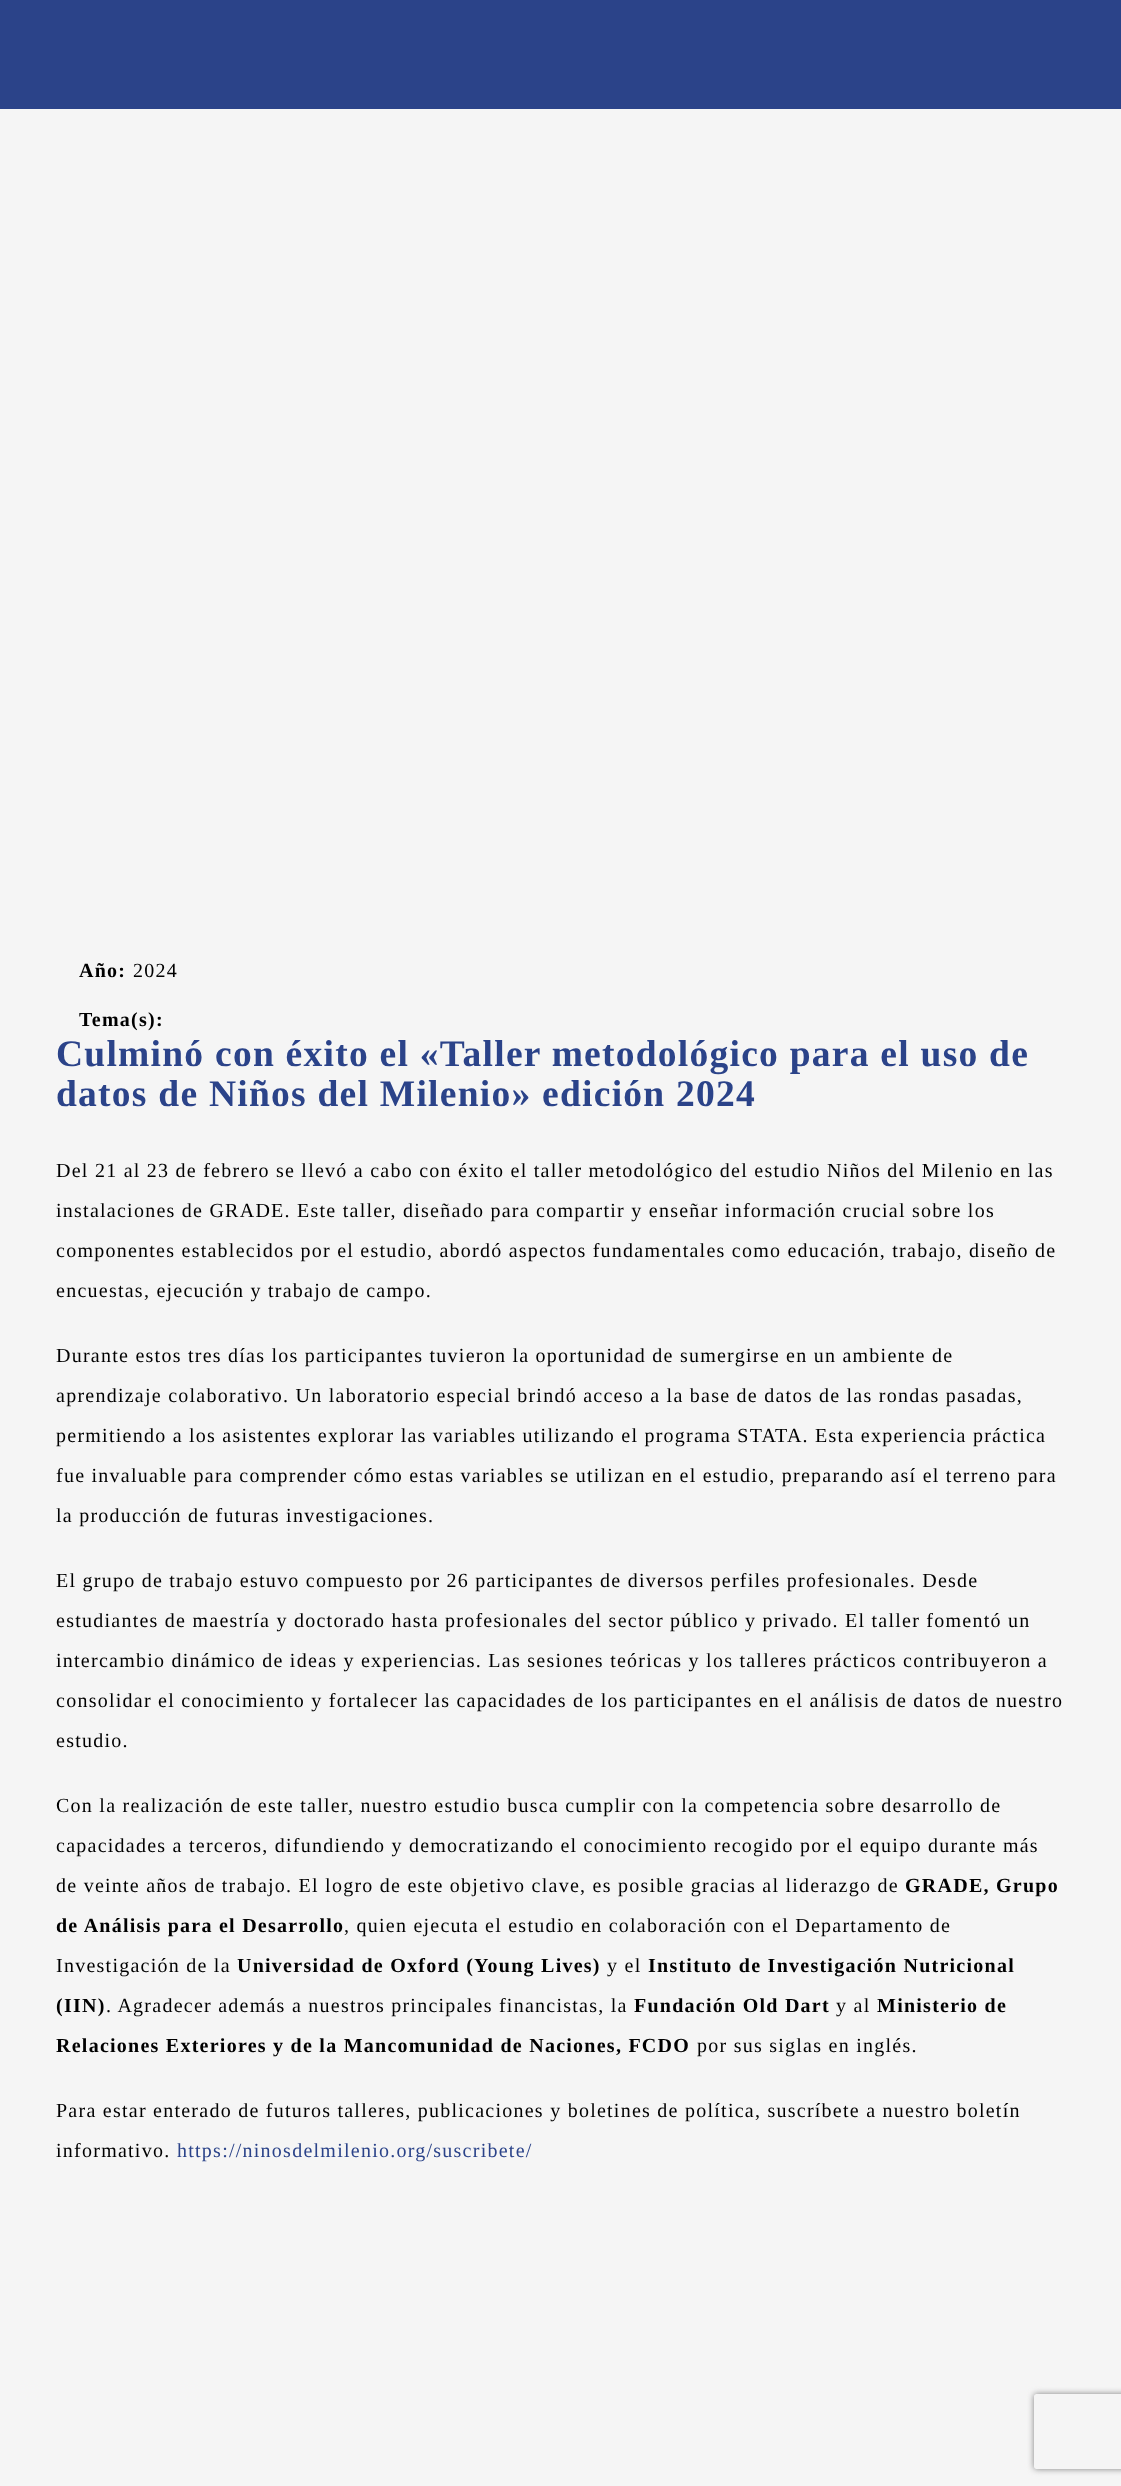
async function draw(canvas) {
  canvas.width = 1121;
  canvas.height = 2486;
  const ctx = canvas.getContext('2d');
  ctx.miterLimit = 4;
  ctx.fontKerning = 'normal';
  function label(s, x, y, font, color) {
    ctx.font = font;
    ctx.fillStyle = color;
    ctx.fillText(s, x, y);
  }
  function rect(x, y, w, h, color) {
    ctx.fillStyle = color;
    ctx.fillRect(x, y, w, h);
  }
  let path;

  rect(0, 0, 1121, 2486, '#f5f5f5');
  rect(0, 0, 1121, 109, '#2b4389');
  ctx.letterSpacing = '1.25px';
  label('Año:', 79, 977, 'bold 20px Liberation Serif', '#000');
  label('2024', 133, 977, '20px Liberation Serif', '#000');
  label('Tema(s):', 79, 1026, 'bold 20px Liberation Serif', '#000');
  label('Culminó con éxito el «Taller metodológico para el uso de', 56, 1066, 'bold 37.5px Liberation Serif', '#2b4389');
  label('datos de Niños del Milenio» edición 2024', 56, 1106, 'bold 37.5px Liberation Serif', '#2b4389');
  label('Del 21 al 23 de febrero se llevó a cabo con éxito el taller metodológico del estudio Niños del Milenio en las', 56, 1177, '20px Liberation Serif', '#000');
  label('instalaciones de GRADE. Este taller, diseñado para compartir y enseñar información crucial sobre los', 56, 1217, '20px Liberation Serif', '#000');
  label('componentes establecidos por el estudio, abordó aspectos fundamentales como educación, trabajo, diseño de', 56, 1257, '20px Liberation Serif', '#000');
  label('encuestas, ejecución y trabajo de campo.', 56, 1297, '20px Liberation Serif', '#000');
  label('Durante estos tres días los participantes tuvieron la oportunidad de sumergirse en un ambiente de', 56, 1362, '20px Liberation Serif', '#000');
  label('aprendizaje colaborativo. Un laboratorio especial brindó acceso a la base de datos de las rondas pasadas,', 56, 1402, '20px Liberation Serif', '#000');
  label('permitiendo a los asistentes explorar las variables utilizando el programa STATA. Esta experiencia práctica', 56, 1442, '20px Liberation Serif', '#000');
  label('fue invaluable para comprender cómo estas variables se utilizan en el estudio, preparando así el terreno para', 56, 1482, '20px Liberation Serif', '#000');
  label('la producción de futuras investigaciones.', 56, 1522, '20px Liberation Serif', '#000');
  label('El grupo de trabajo estuvo compuesto por 26 participantes de diversos perfiles profesionales. Desde', 56, 1587, '20px Liberation Serif', '#000');
  label('estudiantes de maestría y doctorado hasta profesionales del sector público y privado. El taller fomentó un', 56, 1627, '20px Liberation Serif', '#000');
  label('intercambio dinámico de ideas y experiencias. Las sesiones teóricas y los talleres prácticos contribuyeron a', 56, 1667, '20px Liberation Serif', '#000');
  label('consolidar el conocimiento y fortalecer las capacidades de los participantes en el análisis de datos de nuestro', 56, 1707, '20px Liberation Serif', '#000');
  label('estudio.', 56, 1747, '20px Liberation Serif', '#000');
  label('Con la realización de este taller, nuestro estudio busca cumplir con la competencia sobre desarrollo de', 56, 1812, '20px Liberation Serif', '#000');
  label('capacidades a terceros, difundiendo y democratizando el conocimiento recogido por el equipo durante más', 56, 1852, '20px Liberation Serif', '#000');
  label('de veinte años de trabajo. El logro de este objetivo clave, es posible gracias al liderazgo de', 56, 1892, '20px Liberation Serif', '#000');
  label('GRADE, Grupo', 905, 1892, 'bold 20px Liberation Serif', '#000');
  label('de Análisis para el Desarrollo', 56, 1932, 'bold 20px Liberation Serif', '#000');
  label(', quien ejecuta el estudio en colaboración con el Departamento de', 344, 1932, '20px Liberation Serif', '#000');
  label('Investigación de la', 56, 1972, '20px Liberation Serif', '#000');
  label('Universidad de Oxford (Young Lives)', 237, 1972, 'bold 20px Liberation Serif', '#000');
  label('y el', 607, 1972, '20px Liberation Serif', '#000');
  label('Instituto de Investigación Nutricional', 648, 1972, 'bold 20px Liberation Serif', '#000');
  label('(IIN)', 56, 2012, 'bold 20px Liberation Serif', '#000');
  label('. Agradecer además a nuestros principales financistas, la', 106, 2012, '20px Liberation Serif', '#000');
  label('Fundación Old Dart', 634, 2012, 'bold 20px Liberation Serif', '#000');
  label('y al', 836, 2012, '20px Liberation Serif', '#000');
  label('Ministerio de', 877, 2012, 'bold 20px Liberation Serif', '#000');
  label('Relaciones Exteriores y de la Mancomunidad de Naciones, FCDO', 56, 2052, 'bold 20px Liberation Serif', '#000');
  label('por sus siglas en inglés.', 697, 2052, '20px Liberation Serif', '#000');
  label('Para estar enterado de futuros talleres, publicaciones y boletines de política, suscríbete a nuestro boletín', 56, 2117, '20px Liberation Serif', '#000');
  label('informativo.', 56, 2157, '20px Liberation Serif', '#000');
  label('https://ninosdelmilenio.org/suscribete/', 177, 2157, '20px Liberation Serif', '#2b4389');
  ctx.save();
  path = new Path2D('M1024 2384H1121V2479H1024ZM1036.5 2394H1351.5C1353 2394 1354 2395 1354 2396.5V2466.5C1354 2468 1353 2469 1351.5 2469H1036.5C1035 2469 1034 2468 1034 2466.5V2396.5C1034 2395 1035 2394 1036.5 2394Z');
  ctx.clip(path, 'evenodd');
  ctx.fillStyle = '#808080';
  ctx.filter = 'blur(3px)';
  ctx.beginPath();
  ctx.roundRect(1034, 2394, 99, 75, 2.5);
  ctx.fill();
  ctx.filter = 'none';
  ctx.restore();
}

draw(document.querySelector('canvas'));
